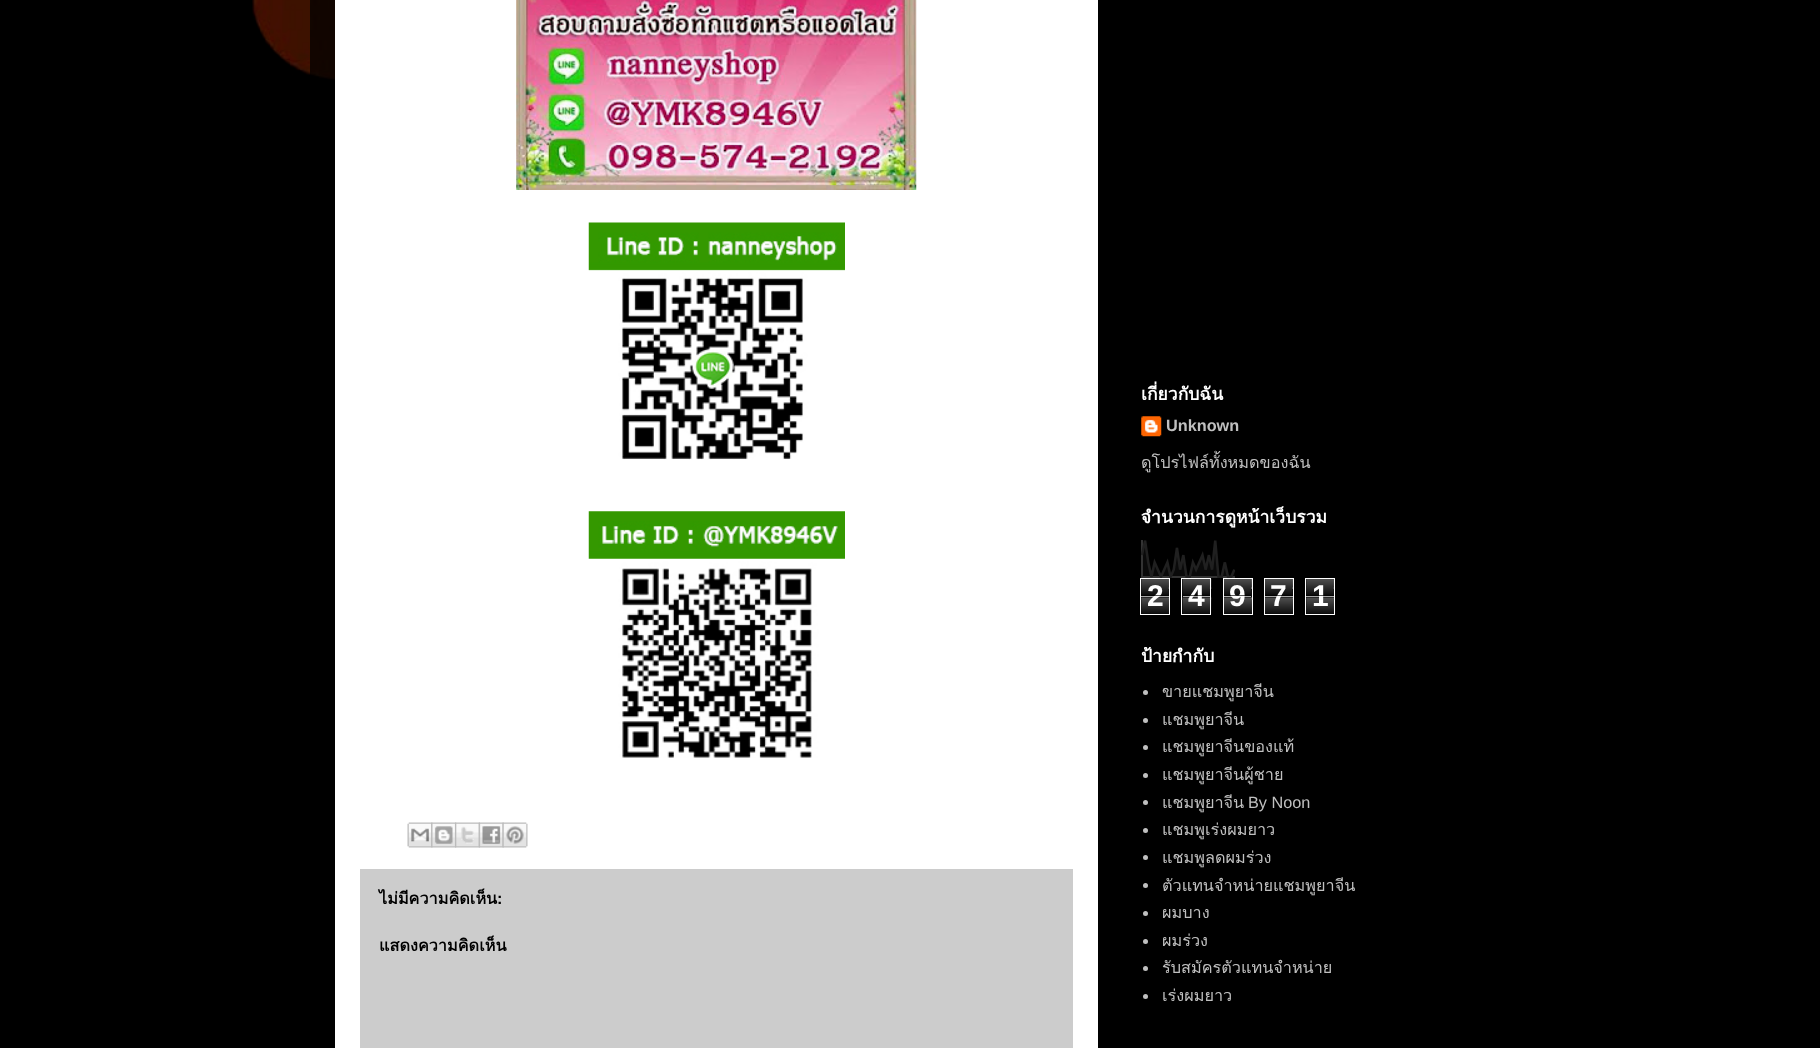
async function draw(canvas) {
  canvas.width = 1820;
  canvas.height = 1048;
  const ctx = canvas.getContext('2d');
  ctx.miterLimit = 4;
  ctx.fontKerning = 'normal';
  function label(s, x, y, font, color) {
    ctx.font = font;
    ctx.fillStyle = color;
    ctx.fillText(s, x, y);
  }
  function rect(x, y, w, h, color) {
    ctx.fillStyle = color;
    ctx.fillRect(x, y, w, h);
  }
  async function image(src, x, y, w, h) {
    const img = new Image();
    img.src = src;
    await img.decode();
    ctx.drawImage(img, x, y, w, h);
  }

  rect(0, 0, 1820, 1048, '#000');
  await image('assets/img1.png', 252, 0, 83, 126);
  rect(310, 0, 25, 81, '#000000b3');
  rect(335, 0, 763, 1048, '#fff');
  await image('assets/img2.png', 516, 0, 401, 190);
  await image('assets/img3.png', 588, 222, 257, 238);
  await image('assets/img4.png', 588, 511, 257, 247);
  await image('assets/img5.png', 407, 822, 26, 26);
  await image('assets/img6.png', 431, 822, 26, 26);
  await image('assets/img7.png', 455, 822, 25, 26);
  await image('assets/img8.png', 478, 822, 26, 26);
  await image('assets/img9.png', 502, 822, 26, 26);
  rect(360, 869, 713, 179, '#ccc');
  label('ไม่มีความคิดเห็น', 379, 904, 'bold 16.25px Loma', '#000');
  label(':', 497, 904, 'bold 16.25px Liberation Sans', '#000');
  label('แสดงความคิดเห็น', 379, 951, 'bold 16.25px Loma', '#000');
  label('เกี่ยวกับฉัน', 1141, 400, 'bold 17.5px Loma', '#fff');
  await image('assets/img10.png', 1141, 416, 21, 21);
  label('Unknown', 1166, 431, 'bold 16.25px Liberation Sans', '#c0c0c0');
  label('ดูโปรไฟล์ทั้งหมดของฉัน', 1141, 468, '16.25px Loma', '#c0c0c0');
  label('จำนวนการดูหน้าเว็บรวม', 1141, 523, 'bold 17.5px Loma', '#fff');
  await image('assets/img11.png', 1141, 540, 94, 38);
  await image('assets/img12.png', 1141, 579, 28, 35);
  ctx.strokeStyle = '#fff';
  ctx.strokeRect(1140.5, 578.5, 29, 36);
  label('2', 1147, 606, 'bold 30px Liberation Sans', '#fff');
  rect(1141, 595, 28, 1, '#000000a6');
  rect(1141, 596, 28, 1, '#ffffffa6');
  await image('assets/img13.png', 1182, 578, 30, 37);
  ctx.strokeRect(1181.5, 578.5, 29, 36);
  label('4', 1188, 606, 'bold 30px Liberation Sans', '#fff');
  rect(1183, 595, 27, 1, '#000000a6');
  rect(1183, 596, 27, 1, '#ffffffa6');
  await image('assets/img14.png', 1224, 579, 28, 35);
  ctx.strokeRect(1223.5, 578.5, 29, 36);
  label('9', 1229, 606, 'bold 30px Liberation Sans', '#fff');
  rect(1224, 595, 27, 1, '#000000a6');
  rect(1224, 596, 27, 1, '#ffffffa6');
  await image('assets/img15.png', 1265, 579, 28, 35);
  ctx.strokeRect(1264.5, 578.5, 29, 36);
  label('7', 1270, 606, 'bold 30px Liberation Sans', '#fff');
  rect(1265, 595, 28, 1, '#000000a6');
  rect(1265, 596, 28, 1, '#ffffffa6');
  await image('assets/img12.png', 1306, 579, 28, 35);
  ctx.strokeRect(1305.5, 578.5, 29, 36);
  label('1', 1312, 606, 'bold 30px Liberation Sans', '#fff');
  rect(1306, 595, 28, 1, '#000000a6');
  rect(1306, 596, 28, 1, '#ffffffa6');
  label('ป้ายกำกับ', 1141, 662, 'bold 17.5px Loma', '#fff');
  ctx.fillStyle = '#c0c0c0';
  ctx.beginPath();
  ctx.arc(1145.5, 692.5, 2.5, 0, 2 * Math.PI);
  ctx.fill();
  label('ขายแชมพูยาจีน', 1162, 697, '16.25px Loma', '#c0c0c0');
  ctx.beginPath();
  ctx.arc(1145.5, 720.5, 2.5, 0, 2 * Math.PI);
  ctx.fill();
  label('แชมพูยาจีน', 1162, 725, '16.25px Loma', '#c0c0c0');
  ctx.beginPath();
  ctx.arc(1145.5, 747.5, 2.5, 0, 2 * Math.PI);
  ctx.fill();
  label('แชมพูยาจีนของแท้', 1162, 752, '16.25px Loma', '#c0c0c0');
  ctx.beginPath();
  ctx.arc(1145.5, 775.5, 2.5, 0, 2 * Math.PI);
  ctx.fill();
  label('แชมพูยาจีนผู้ชาย', 1162, 780, '16.25px Loma', '#c0c0c0');
  ctx.beginPath();
  ctx.arc(1145.5, 802.5, 2.5, 0, 2 * Math.PI);
  ctx.fill();
  label('แชมพูยาจีน', 1162, 808, '16.25px Loma', '#c0c0c0');
  label('By Noon', 1248, 808, '16.25px Liberation Sans', '#c0c0c0');
  ctx.beginPath();
  ctx.arc(1145.5, 830.5, 2.5, 0, 2 * Math.PI);
  ctx.fill();
  label('แชมพูเร่งผมยาว', 1162, 835, '16.25px Loma', '#c0c0c0');
  ctx.beginPath();
  ctx.arc(1145.5, 857.5, 2.5, 0, 2 * Math.PI);
  ctx.fill();
  label('แชมพูลดผมร่วง', 1162, 863, '16.25px Loma', '#c0c0c0');
  ctx.beginPath();
  ctx.arc(1145.5, 885.5, 2.5, 0, 2 * Math.PI);
  ctx.fill();
  label('ตัวแทนจำหน่ายแชมพูยาจีน', 1162, 891, '16.25px Loma', '#c0c0c0');
  ctx.beginPath();
  ctx.arc(1145.5, 913.5, 2.5, 0, 2 * Math.PI);
  ctx.fill();
  label('ผมบาง', 1162, 918, '16.25px Loma', '#c0c0c0');
  ctx.beginPath();
  ctx.arc(1145.5, 941.5, 2.5, 0, 2 * Math.PI);
  ctx.fill();
  label('ผมร่วง', 1162, 946, '16.25px Loma', '#c0c0c0');
  ctx.beginPath();
  ctx.arc(1145.5, 968.5, 2.5, 0, 2 * Math.PI);
  ctx.fill();
  label('รับสมัครตัวแทนจำหน่าย', 1162, 973, '16.25px Loma', '#c0c0c0');
  ctx.beginPath();
  ctx.arc(1145.5, 996.5, 2.5, 0, 2 * Math.PI);
  ctx.fill();
  label('เร่งผมยาว', 1162, 1001, '16.25px Loma', '#c0c0c0');
}

draw(document.querySelector('canvas'));
